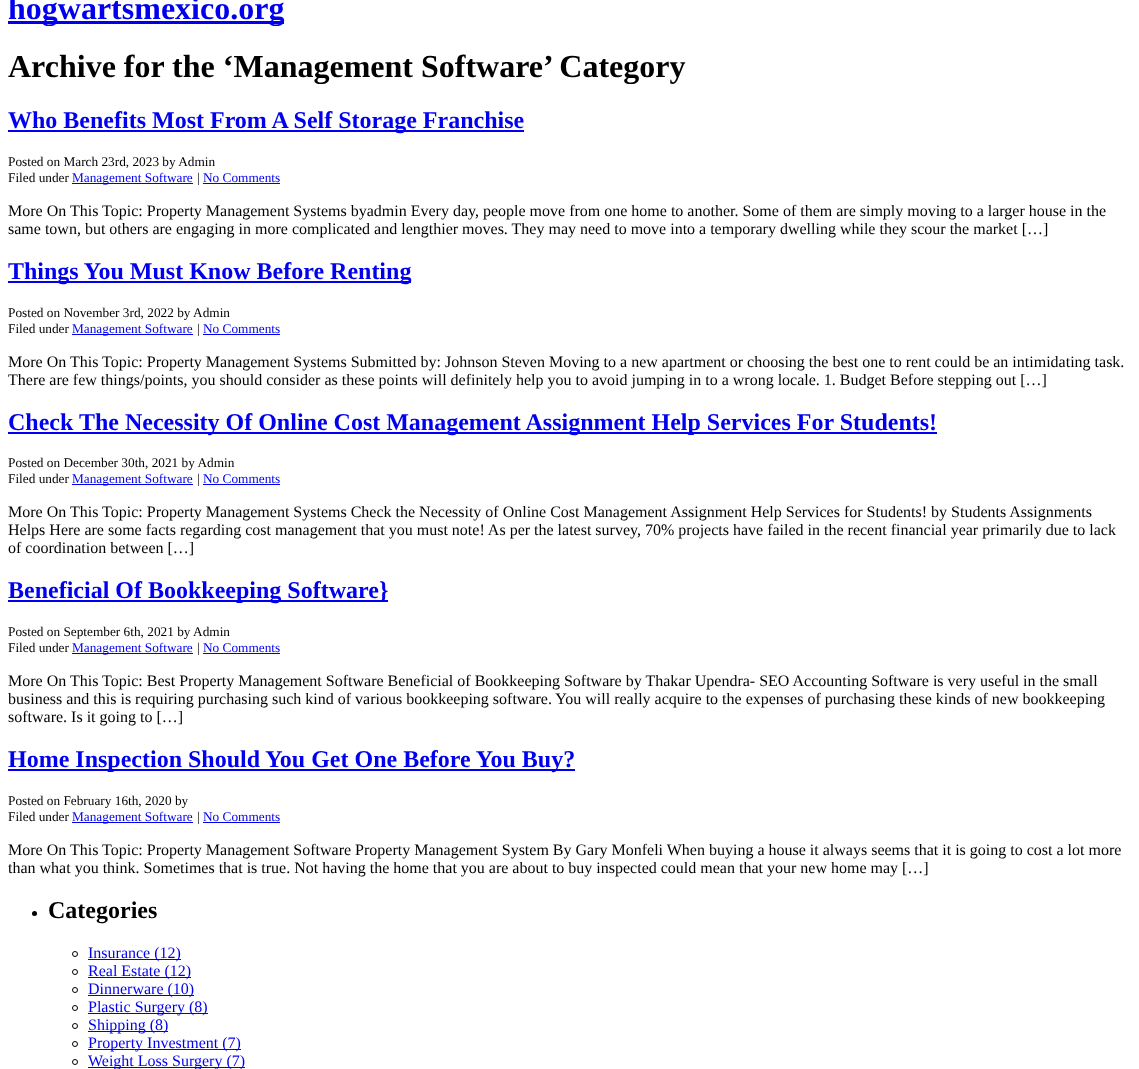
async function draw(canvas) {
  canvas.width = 1139;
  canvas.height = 1069;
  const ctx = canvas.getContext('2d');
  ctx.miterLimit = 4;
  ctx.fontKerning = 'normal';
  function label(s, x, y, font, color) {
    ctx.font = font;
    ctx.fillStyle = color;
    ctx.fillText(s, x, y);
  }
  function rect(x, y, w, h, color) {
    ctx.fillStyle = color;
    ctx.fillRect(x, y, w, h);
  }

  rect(0, 0, 1139, 1069, '#fff');
  rect(8, 21, 276, 3, '#00e');
  label('hogwartsmexico.org', 8, 19, 'bold 32px Liberation Serif', '#00e');
  label('Archive for the ‘Management Software’ Category', 8, 77, 'bold 32px Liberation Serif', '#000');
  rect(8, 130, 516, 2, '#00e');
  label('Who Benefits Most From A Self Storage Franchise', 8, 128, 'bold 24px Liberation Serif', '#00e');
  label('Posted on March 23rd, 2023 by Admin', 8, 166, '13.3px Liberation Serif', '#000');
  label('Filed under', 8, 182, '13.3px Liberation Serif', '#000');
  rect(72, 183, 121, 1, '#00e');
  label('Management Software', 72, 182, '13.3px Liberation Serif', '#00e');
  label('|', 197, 182, '13.3px Liberation Serif', '#000');
  label('No Comments', 203, 182, '13.3px Liberation Serif', '#00e');
  rect(203, 183, 77, 1, '#00e');
  label('More On This Topic: Property Management Systems byadmin Every day, people move from one home to another. Some of them are simply moving to a larger house in the', 8, 216, '16px Liberation Serif', '#000');
  label('same town, but others are engaging in more complicated and lengthier moves. They may need to move into a temporary dwelling while they scour the market […]', 8, 234, '16px Liberation Serif', '#000');
  rect(8, 281, 403, 2, '#00e');
  label('Things You Must Know Before Renting', 8, 279, 'bold 24px Liberation Serif', '#00e');
  label('Posted on November 3rd, 2022 by Admin', 8, 317, '13.3px Liberation Serif', '#000');
  label('Filed under', 8, 333, '13.3px Liberation Serif', '#000');
  rect(72, 334, 121, 1, '#00e');
  label('Management Software', 72, 333, '13.3px Liberation Serif', '#00e');
  label('|', 197, 333, '13.3px Liberation Serif', '#000');
  label('No Comments', 203, 333, '13.3px Liberation Serif', '#00e');
  rect(203, 334, 77, 1, '#00e');
  label('More On This Topic: Property Management Systems Submitted by: Johnson Steven Moving to a new apartment or choosing the best one to rent could be an intimidating task.', 8, 367, '16px Liberation Serif', '#000');
  label('There are few things/points, you should consider as these points will definitely help you to avoid jumping in to a wrong locale. 1. Budget Before stepping out […]', 8, 385, '16px Liberation Serif', '#000');
  rect(8, 432, 929, 2, '#00e');
  label('Check The Necessity Of Online Cost Management Assignment Help Services For Students!', 8, 430, 'bold 24px Liberation Serif', '#00e');
  label('Posted on December 30th, 2021 by Admin', 8, 467, '13.3px Liberation Serif', '#000');
  label('Filed under', 8, 483, '13.3px Liberation Serif', '#000');
  rect(72, 484, 121, 1, '#00e');
  label('Management Software', 72, 483, '13.3px Liberation Serif', '#00e');
  label('|', 197, 483, '13.3px Liberation Serif', '#000');
  label('No Comments', 203, 483, '13.3px Liberation Serif', '#00e');
  rect(203, 484, 77, 1, '#00e');
  label('More On This Topic: Property Management Systems Check the Necessity of Online Cost Management Assignment Help Services for Students! by Students Assignments', 8, 517, '16px Liberation Serif', '#000');
  label('Helps Here are some facts regarding cost management that you must note! As per the latest survey, 70% projects have failed in the recent financial year primarily due to lack', 8, 535, '16px Liberation Serif', '#000');
  label('of coordination between […]', 8, 553, '16px Liberation Serif', '#000');
  rect(8, 600, 380, 2, '#00e');
  label('Beneficial Of Bookkeeping Software}', 8, 598, 'bold 24px Liberation Serif', '#00e');
  label('Posted on September 6th, 2021 by Admin', 8, 636, '13.3px Liberation Serif', '#000');
  label('Filed under', 8, 652, '13.3px Liberation Serif', '#000');
  rect(72, 653, 121, 1, '#00e');
  label('Management Software', 72, 652, '13.3px Liberation Serif', '#00e');
  label('|', 197, 652, '13.3px Liberation Serif', '#000');
  label('No Comments', 203, 652, '13.3px Liberation Serif', '#00e');
  rect(203, 653, 77, 1, '#00e');
  label('More On This Topic: Best Property Management Software Beneficial of Bookkeeping Software by Thakar Upendra- SEO Accounting Software is very useful in the small', 8, 686, '16px Liberation Serif', '#000');
  label('business and this is requiring purchasing such kind of various bookkeeping software. You will really acquire to the expenses of purchasing these kinds of new bookkeeping', 8, 704, '16px Liberation Serif', '#000');
  label('software. Is it going to […]', 8, 722, '16px Liberation Serif', '#000');
  rect(8, 769, 567, 2, '#00e');
  label('Home Inspection Should You Get One Before You Buy?', 8, 767, 'bold 24px Liberation Serif', '#00e');
  label('Posted on February 16th, 2020 by', 8, 805, '13.3px Liberation Serif', '#000');
  label('Filed under', 8, 821, '13.3px Liberation Serif', '#000');
  rect(72, 822, 121, 1, '#00e');
  label('Management Software', 72, 821, '13.3px Liberation Serif', '#00e');
  label('|', 197, 821, '13.3px Liberation Serif', '#000');
  label('No Comments', 203, 821, '13.3px Liberation Serif', '#00e');
  rect(203, 822, 77, 1, '#00e');
  label('More On This Topic: Property Management Software Property Management System By Gary Monfeli When buying a house it always seems that it is going to cost a lot more', 8, 855, '16px Liberation Serif', '#000');
  label('than what you think. Sometimes that is true. Not having the home that you are about to buy inspected could mean that your new home may […]', 8, 873, '16px Liberation Serif', '#000');
  ctx.beginPath();
  ctx.arc(34.5, 913.5, 2.5, 0, 2 * Math.PI);
  ctx.fill();
  label('Categories', 48, 918, 'bold 24px Liberation Serif', '#000');
  ctx.beginPath();
  ctx.arc(75, 954, 2.5, 0, 2 * Math.PI);
  ctx.strokeStyle = '#000';
  ctx.stroke();
  rect(88, 959, 93, 1, '#00e');
  label('Insurance (12)', 88, 958, '16px Liberation Serif', '#00e');
  ctx.beginPath();
  ctx.arc(75, 972, 2.5, 0, 2 * Math.PI);
  ctx.stroke();
  rect(88, 977, 103, 1, '#00e');
  label('Real Estate (12)', 88, 976, '16px Liberation Serif', '#00e');
  ctx.beginPath();
  ctx.arc(75, 990, 2.5, 0, 2 * Math.PI);
  ctx.stroke();
  rect(88, 995, 106, 1, '#00e');
  label('Dinnerware (10)', 88, 994, '16px Liberation Serif', '#00e');
  ctx.beginPath();
  ctx.arc(75, 1008, 2.5, 0, 2 * Math.PI);
  ctx.stroke();
  rect(88, 1013, 120, 1, '#00e');
  label('Plastic Surgery (8)', 88, 1012, '16px Liberation Serif', '#00e');
  ctx.beginPath();
  ctx.arc(75, 1026, 2.5, 0, 2 * Math.PI);
  ctx.stroke();
  rect(88, 1031, 80, 1, '#00e');
  label('Shipping (8)', 88, 1030, '16px Liberation Serif', '#00e');
  ctx.beginPath();
  ctx.arc(75, 1044, 2.5, 0, 2 * Math.PI);
  ctx.stroke();
  rect(88, 1049, 153, 1, '#00e');
  label('Property Investment (7)', 88, 1048, '16px Liberation Serif', '#00e');
  ctx.beginPath();
  ctx.arc(75, 1062, 2.5, 0, 2 * Math.PI);
  ctx.stroke();
  rect(88, 1067, 157, 1, '#00e');
  label('Weight Loss Surgery (7)', 88, 1066, '16px Liberation Serif', '#00e');
}

draw(document.querySelector('canvas'));
